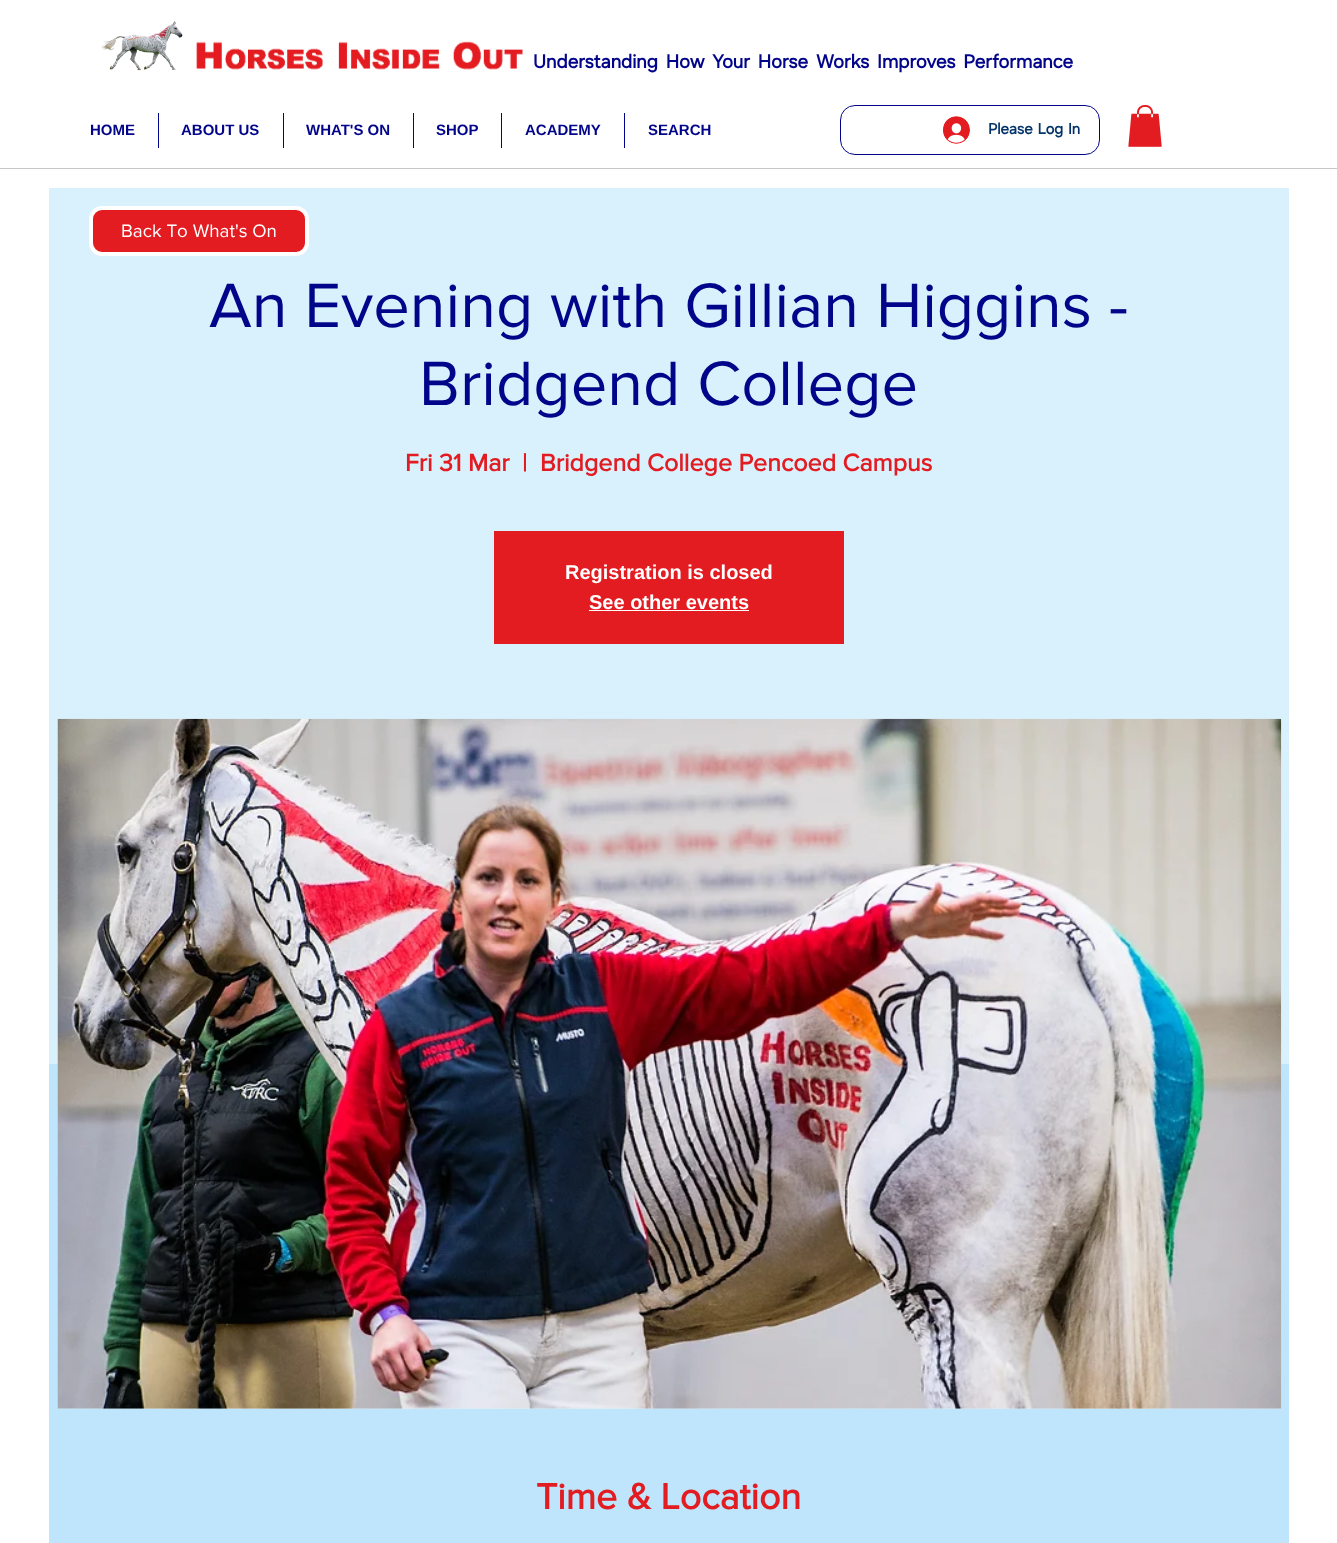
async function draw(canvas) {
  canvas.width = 1337;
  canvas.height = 1543;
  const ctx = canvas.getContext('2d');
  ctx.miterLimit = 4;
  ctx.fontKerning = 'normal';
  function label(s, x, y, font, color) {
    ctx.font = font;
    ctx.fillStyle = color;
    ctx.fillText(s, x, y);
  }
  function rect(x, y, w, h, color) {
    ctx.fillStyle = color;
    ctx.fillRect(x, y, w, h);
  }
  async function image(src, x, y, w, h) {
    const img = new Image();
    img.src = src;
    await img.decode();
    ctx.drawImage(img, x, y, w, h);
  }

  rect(0, 0, 1337, 1543, '#fff');
  await image('assets/img1.png', 101, 21, 82, 50);
  await image('assets/img2.png', 196, 41, 327, 29);
  ctx.wordSpacing = '3px';
  label('Understanding How Your Horse Works Improves Performance', 533, 68, 'bold 18.75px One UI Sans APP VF', '#02058a');
  ctx.wordSpacing = '0px';
  label('HOME', 90, 135, 'bold 15px Liberation Sans', '#02058a');
  rect(158, 113, 1, 35, '#02058a');
  label('ABOUT US', 181, 135, 'bold 15px Liberation Sans', '#02058a');
  rect(283, 113, 1, 35, '#02058a');
  label('WHAT\'S ON', 306, 135, 'bold 15px Liberation Sans', '#02058a');
  rect(413, 113, 1, 35, '#02058a');
  label('SHOP', 436, 135, 'bold 15px Liberation Sans', '#02058a');
  rect(501, 113, 1, 35, '#02058a');
  label('ACADEMY', 525, 135, 'bold 15px Liberation Sans', '#02058a');
  rect(624, 113, 1, 35, '#02058a');
  label('SEARCH', 648, 135, 'bold 15px Liberation Sans', '#02058a');
  ctx.beginPath();
  ctx.roundRect(840.5, 105.5, 259, 49, 14.5);
  ctx.strokeStyle = '#02058a';
  ctx.stroke();
  await image('assets/img3.png', 943, 116, 27, 28);
  ctx.wordSpacing = '1px';
  label('Please Log In', 988, 134, 'bold 15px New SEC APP', '#04346a');
  await image('assets/img4.png', 1128, 105, 34, 42);
  rect(0, 168, 1337, 1, '#c7c7c7');
  rect(49, 188, 1240, 876, '#d9f0fd');
  ctx.fillStyle = '#e21c21';
  ctx.beginPath();
  ctx.roundRect(91, 208, 216, 46, 11);
  ctx.fill();
  ctx.strokeStyle = '#fff';
  ctx.lineWidth = 4;
  ctx.stroke();
  ctx.wordSpacing = '0px';
  label('Back To What\'s On', 121, 237, '18.75px "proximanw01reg"', '#fff');
  label('An Evening with Gillian Higgins -', 209, 327, '65px "proximanw01reg"', '#02058a');
  label('Bridgend College', 419, 405, '65px "proximanw01reg"', '#02058a');
  label('Fri 31 Mar', 405, 471, 'bold 25px "proximanw01reg"', '#e21c21');
  label('|', 522, 471, 'bold 25px "proximanw01reg"', '#e21c21');
  label('Bridgend College Pencoed Campus', 540, 471, 'bold 25px "proximanw01reg"', '#e21c21');
  rect(494, 531, 350, 113, '#e21c21');
  label('Registration is closed', 565, 579, 'bold 20px Liberation Sans', '#fff');
  label('See other events', 589, 609, 'bold 20px Liberation Sans', '#fff');
  rect(589, 610, 160, 1, '#fff');
  rect(49, 1064, 1240, 479, '#bee5fb');
  rect(58, 1408, 1223, 1, '#d6effd');
  await image('assets/img5.png', 57, 718, 1225, 691);
  label('Time & Location', 536, 1509, 'bold 37.5px "proximanw01reg"', '#e21c21');
}

draw(document.querySelector('canvas'));
